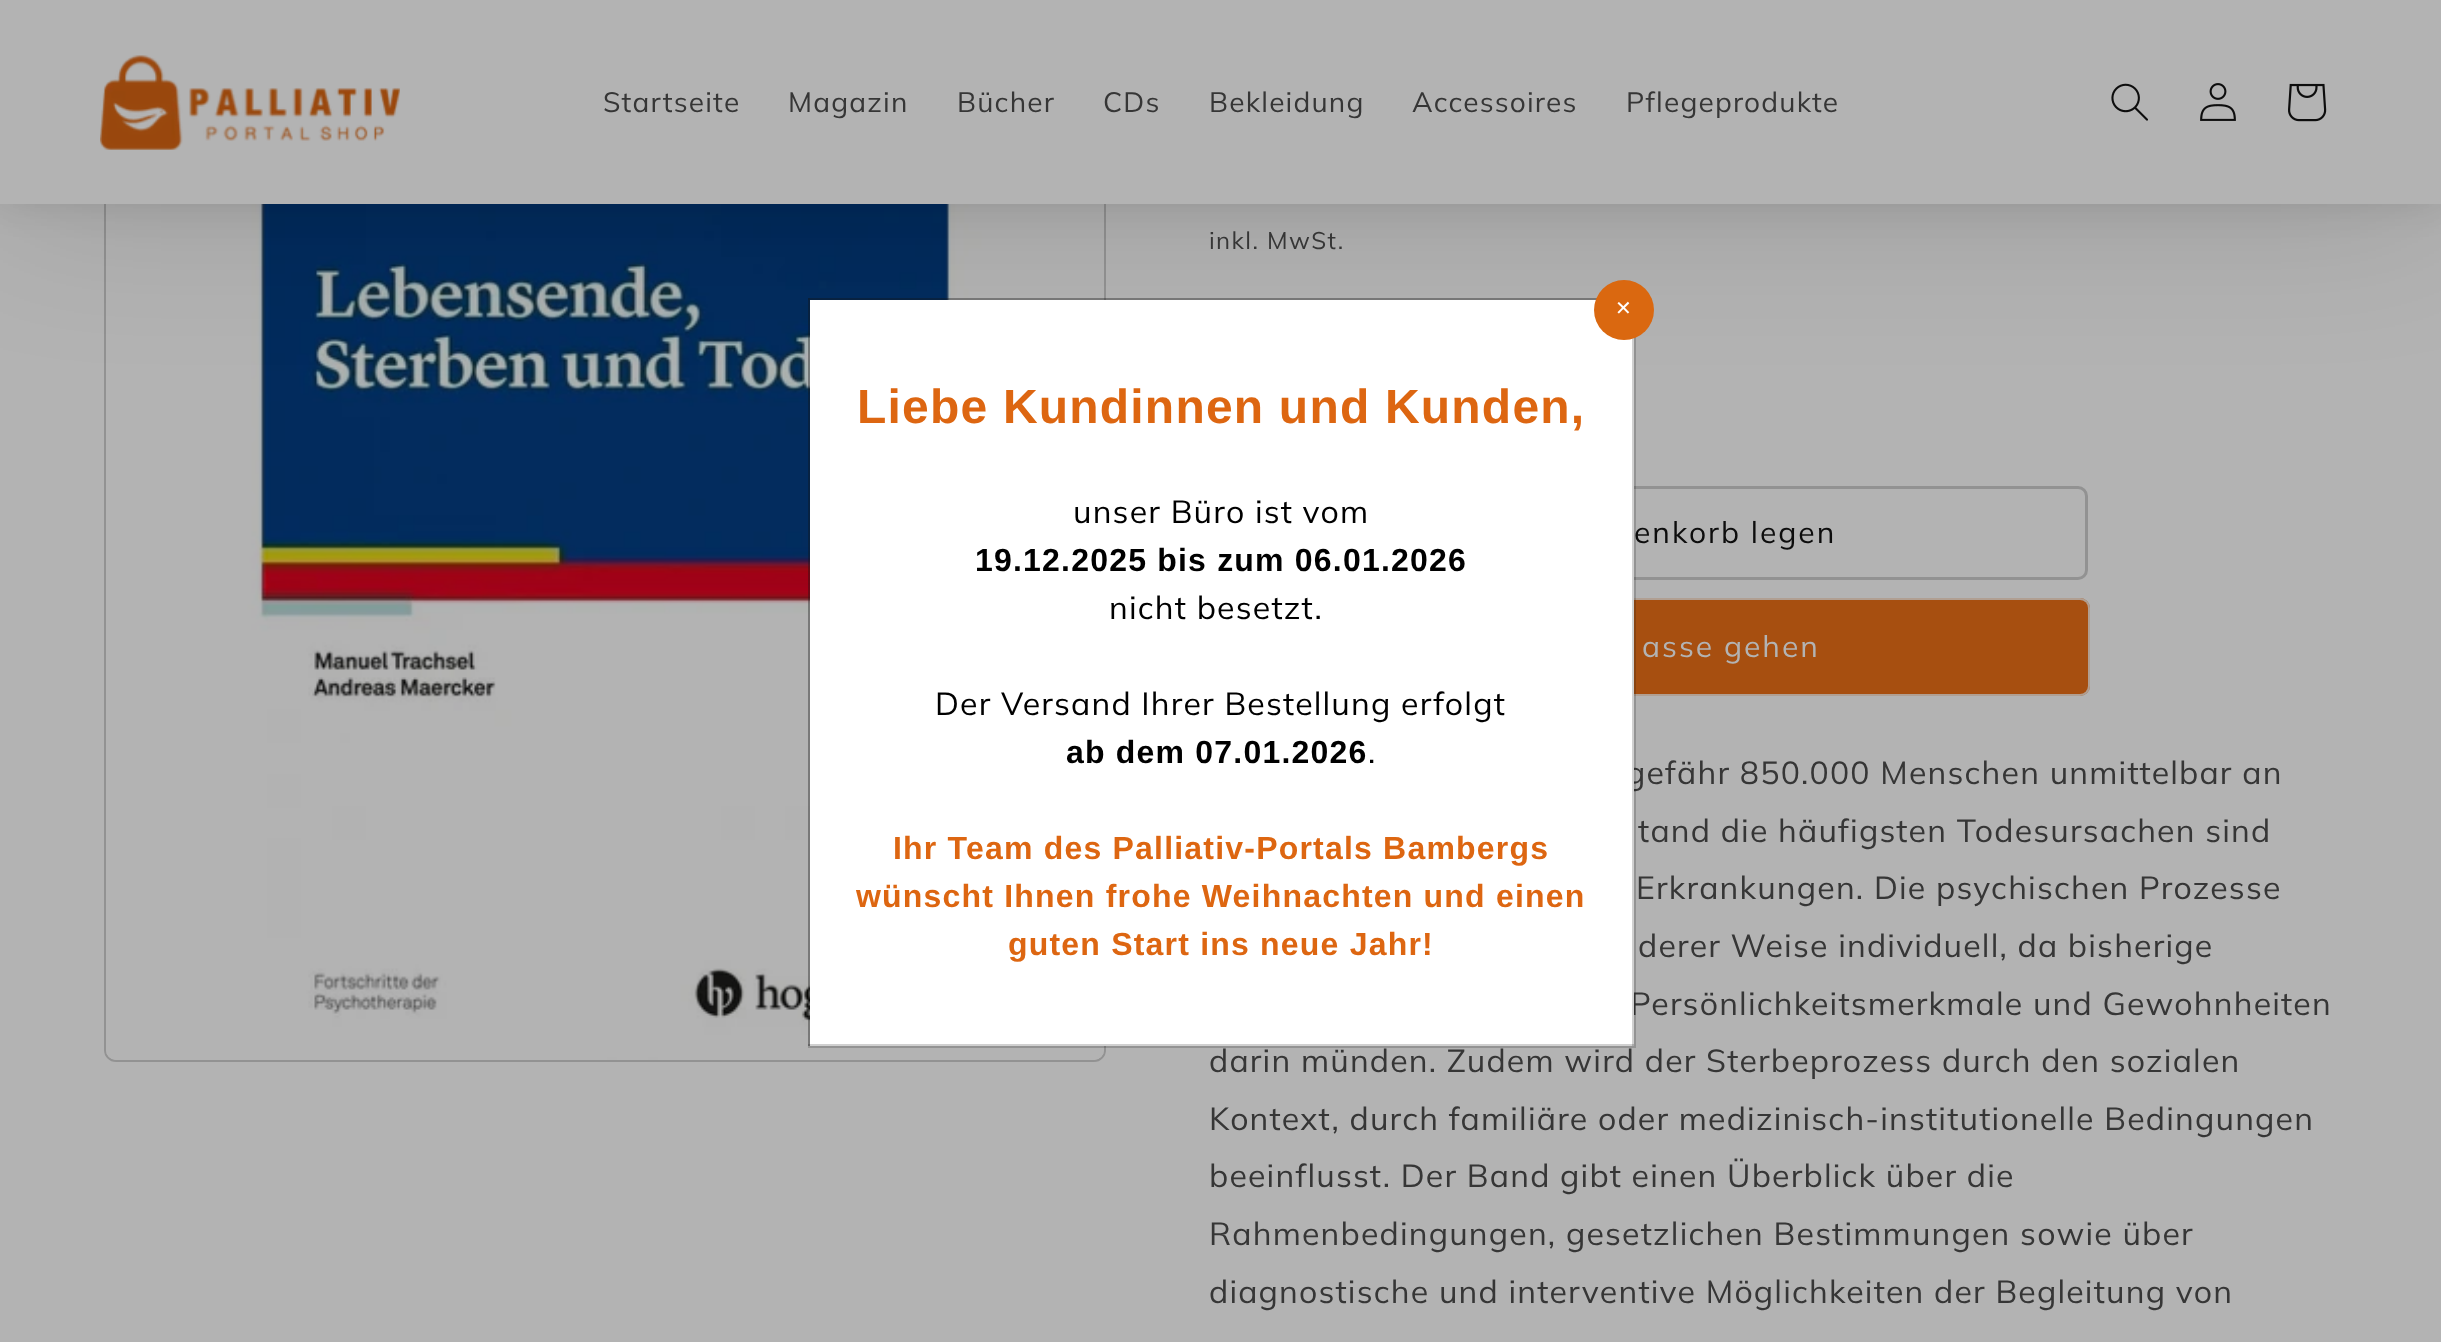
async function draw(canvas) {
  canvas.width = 2441;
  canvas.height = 1342;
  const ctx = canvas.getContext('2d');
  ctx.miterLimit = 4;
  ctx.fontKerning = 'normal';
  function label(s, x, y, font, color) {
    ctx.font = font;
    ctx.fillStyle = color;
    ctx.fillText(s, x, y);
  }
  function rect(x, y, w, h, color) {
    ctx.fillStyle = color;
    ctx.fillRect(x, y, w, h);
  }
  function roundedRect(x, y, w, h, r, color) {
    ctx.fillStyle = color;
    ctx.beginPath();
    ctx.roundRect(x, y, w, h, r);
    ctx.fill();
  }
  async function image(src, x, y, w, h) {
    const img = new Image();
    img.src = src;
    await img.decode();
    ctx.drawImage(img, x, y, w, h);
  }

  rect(0, 0, 2441, 1342, '#b3b3b3');
  ctx.beginPath();
  ctx.roundRect(105, 61, 1000, 1000, 11);
  ctx.strokeStyle = '#929292';
  ctx.lineWidth = 2;
  ctx.stroke();
  await image('assets/img5.png', 106, 204, 998, 856);
  ctx.fillStyle = '#00000026';
  ctx.filter = 'blur(80px)';
  ctx.beginPath();
  ctx.rect(0, 0, 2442, 204);
  ctx.fill();
  ctx.filter = 'none';
  ctx.fillStyle = '#00000017';
  ctx.filter = 'blur(18px)';
  ctx.beginPath();
  ctx.rect(0, 0, 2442, 204);
  ctx.fill();
  ctx.filter = 'none';
  rect(0, 0, 2441, 204, '#b3b3b3');
  await image('assets/img1.png', 100, 55, 300, 95);
  ctx.letterSpacing = '1.2px';
  label('Startseite', 603, 112, '28px Muli', '#363636');
  label('Magazin', 788, 112, '28px Muli', '#363636');
  label('Bücher', 957, 112, '28px Muli', '#363636');
  label('CDs', 1103, 112, '28px Muli', '#363636');
  label('Bekleidung', 1209, 112, '28px Muli', '#363636');
  label('Accessoires', 1412, 112, '28px Muli', '#363636');
  label('Pflegeprodukte', 1626, 112, '28px Muli', '#363636');
  await image('assets/img2.png', 2111, 83, 37, 38);
  await image('assets/img3.png', 2200, 83, 36, 38);
  await image('assets/img4.png', 2288, 83, 39, 39);
  ctx.letterSpacing = '1.4px';
  label('inkl. MwSt.', 1209, 249, '24px Muli', '#363636');
  ctx.beginPath();
  ctx.roundRect(1209.5, 487.5, 877, 91, 8.5);
  ctx.lineWidth = 3;
  ctx.stroke();
  ctx.letterSpacing = '2px';
  label('enkorb legen', 1634, 543, '30px Muli', '#0d0d0d');
  ctx.beginPath();
  ctx.roundRect(1207, 599, 882, 96, 9);
  ctx.strokeStyle = '#a74f10';
  ctx.lineWidth = 2;
  ctx.stroke();
  ctx.beginPath();
  ctx.roundRect(1207.5, 599.5, 881, 95, 8.5);
  ctx.strokeStyle = '#b3b3b3cc';
  ctx.lineWidth = 3;
  ctx.stroke();
  roundedRect(1208, 600, 880, 94, 8, '#a74f10');
  label('asse gehen', 1642, 657, '30px Muli', '#b3b3b3');
  ctx.letterSpacing = '1.2px';
  label('gefähr 850.000 Menschen unmittelbar an', 1626, 784, '32px Muli', '#363636');
  label('tand die häufigsten Todesursachen sind', 1638, 842, '32px Muli', '#363636');
  label('Erkrankungen. Die psychischen Prozesse', 1636, 899, '32px Muli', '#363636');
  label('derer Weise individuell, da bisherige', 1638, 957, '32px Muli', '#363636');
  label('Persönlichkeitsmerkmale und Gewohnheiten', 1630, 1015, '32px Muli', '#363636');
  label('darin münden. Zudem wird der Sterbeprozess durch den sozialen', 1209, 1072, '32px Muli', '#363636');
  label('Kontext, durch familiäre oder medizinisch-institutionelle Bedingungen', 1209, 1130, '32px Muli', '#363636');
  label('beeinflusst. Der Band gibt einen Überblick über die', 1209, 1187, '32px Muli', '#363636');
  label('Rahmenbedingungen, gesetzlichen Bestimmungen sowie über', 1209, 1245, '32px Muli', '#363636');
  label('diagnostische und interventive Möglichkeiten der Begleitung von', 1209, 1303, '32px Muli', '#363636');
  ctx.strokeStyle = '#12121233';
  ctx.lineWidth = 2;
  ctx.strokeRect(809, 299, 826, 748);
  rect(810, 300, 824, 746, '#fff');
  rect(808, 298, 789, 2, '#12121233');
  rect(1632, 338, 2, 708, '#12121233');
  rect(808, 1044, 826, 2, '#12121233');
  rect(808, 298, 2, 748, '#12121233');
  ctx.fillStyle = '#da6810';
  ctx.beginPath();
  ctx.arc(1624, 310, 30, 0, 2 * Math.PI);
  ctx.fill();
  ctx.letterSpacing = '0px';
  label('✕', 1615, 315, '20px DejaVu Sans', '#fff');
  ctx.letterSpacing = '1.2px';
  label('Liebe Kundinnen und Kunden,', 857, 423, 'bold 48px Liberation Sans', '#d61');
  label('unser Büro ist vom', 1073, 523, '32px Muli', '#000');
  label('19.12.2025 bis zum 06.01.2026', 975, 571, 'bold 32px Liberation Sans', '#000');
  label('nicht besetzt.', 1109, 619, '32px Muli', '#000');
  label('Der Versand Ihrer Bestellung erfolgt', 935, 715, '32px Muli', '#000');
  label('ab dem 07.01.2026', 1066, 763, 'bold 32px Liberation Sans', '#000');
  label('.', 1368, 763, '32px Muli', '#000');
  label('Ihr Team des Palliativ-Portals Bambergs', 893, 859, 'bold 32px Liberation Sans', '#d61');
  label('wünscht Ihnen frohe Weihnachten und einen', 856, 907, 'bold 32px Liberation Sans', '#d61');
  label('guten Start ins neue Jahr!', 1008, 955, 'bold 32px Liberation Sans', '#d61');
}

draw(document.querySelector('canvas'));
